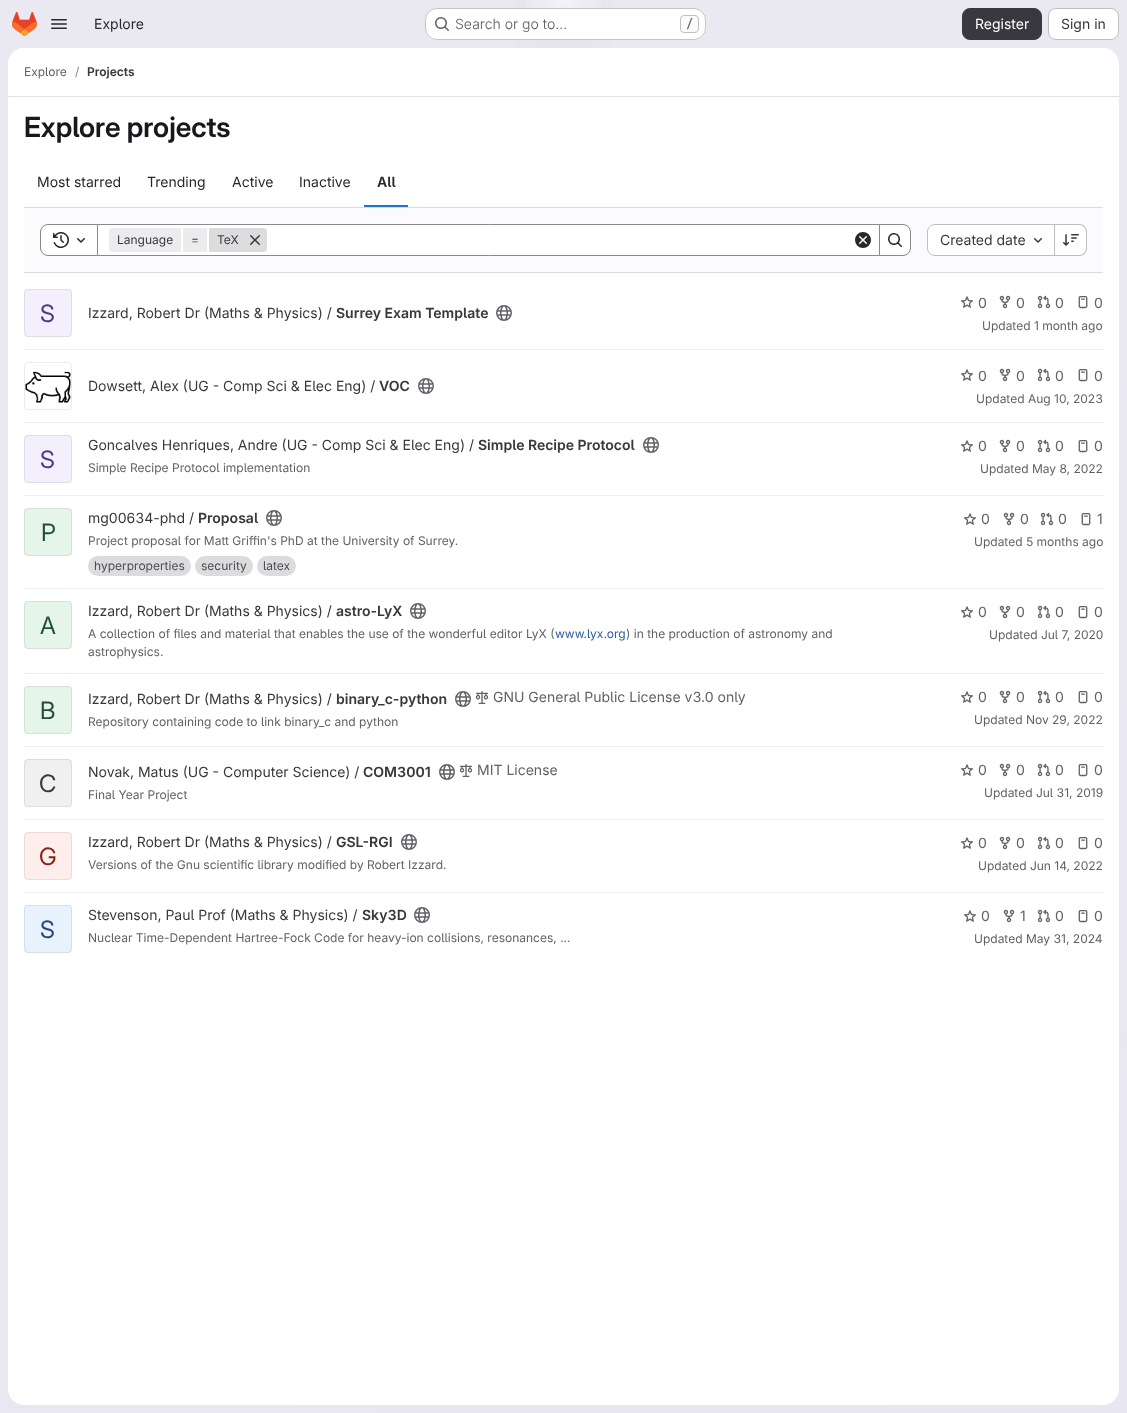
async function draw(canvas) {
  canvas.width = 1127;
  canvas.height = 1413;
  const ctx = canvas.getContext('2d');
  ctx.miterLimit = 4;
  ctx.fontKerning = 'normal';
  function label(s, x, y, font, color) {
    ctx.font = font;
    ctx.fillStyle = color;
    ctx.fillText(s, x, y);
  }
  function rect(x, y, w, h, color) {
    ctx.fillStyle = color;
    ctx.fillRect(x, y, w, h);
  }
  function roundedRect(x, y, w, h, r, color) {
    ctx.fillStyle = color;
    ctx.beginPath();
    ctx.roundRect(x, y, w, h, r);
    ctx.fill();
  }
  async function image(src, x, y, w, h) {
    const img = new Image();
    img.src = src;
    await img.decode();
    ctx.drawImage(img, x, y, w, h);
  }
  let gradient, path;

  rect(0, 0, 1127, 1413, '#fff');
  gradient = ctx.createLinearGradient(701, 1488, 426, -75);
  gradient.addColorStop(0, '#e8e6f0');
  gradient.addColorStop(0.7, '#eae9f2');
  ctx.fillStyle = gradient;
  ctx.fillRect(0, 0, 1127, 1413);
  gradient = ctx.createRadialGradient(564, 0, 0, 564, 0, 564);
  gradient.addColorStop(0, '#e4e2ed');
  gradient.addColorStop(0.12, '#e4e2ed00');
  ctx.fillStyle = gradient;
  ctx.beginPath();
  ctx.rect(515, 0, 98, 48);
  ctx.save();
  ctx.clip();
  ctx.scale(1, 1413 / 564);
  ctx.fillRect(0, 0, 1127, 564);
  ctx.restore();
  gradient = ctx.createRadialGradient(564, 0, 0, 564, 0, 564);
  gradient.addColorStop(0, '#e4e2ec');
  gradient.addColorStop(0.09, '#e4e2ec00');
  ctx.fillStyle = gradient;
  ctx.beginPath();
  ctx.rect(540, 4, 48, 30);
  ctx.save();
  ctx.clip();
  ctx.scale(1, 1413 / 564);
  ctx.fillRect(0, 0, 1127, 564);
  ctx.restore();
  gradient = ctx.createRadialGradient(564, 0, 0, 564, 0, 1521);
  gradient.addColorStop(0, '#ffffff99');
  gradient.addColorStop(0.03, '#ffffff00');
  ctx.fillStyle = gradient;
  ctx.fillRect(526, 0, 76, 39);
  await image('assets/img1.png', 12, 12, 25, 24);
  await image('assets/img2.png', 51, 19, 16, 10);
  label('Explore', 94, 29, '14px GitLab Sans', '#28272d');
  roundedRect(425, 8, 281, 32, 12, '#fff');
  ctx.beginPath();
  ctx.roundRect(425.5, 8.5, 280, 31, 11.5);
  ctx.strokeStyle = '#0505063d';
  ctx.stroke();
  await image('assets/img3.png', 435, 17, 14, 14);
  label('Search or go to…', 455, 29, '300 14px GitLab Sans', '#626168');
  ctx.fillStyle = '#fbfafd';
  ctx.beginPath();
  ctx.roundRect(680.5, 15.5, 18, 17, 3.5);
  ctx.fill();
  ctx.strokeStyle = '#bfbfc3';
  ctx.stroke();
  label('/', 686, 28, '500 12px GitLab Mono', '#626168');
  ctx.fillStyle = '#3a383f';
  ctx.beginPath();
  ctx.roundRect(962.5, 8.5, 79, 31, 7.5);
  ctx.fill();
  ctx.strokeStyle = '#3a383f';
  ctx.stroke();
  label('Register', 975, 29, '14px GitLab Sans', '#fff');
  ctx.beginPath();
  ctx.roundRect(1048.5, 8.5, 70, 31, 7.5);
  ctx.fill();
  ctx.strokeStyle = '#bfbfc3';
  ctx.stroke();
  label('Sign in', 1061, 29, '14px GitLab Sans', '#3a383f');
  roundedRect(8, 48, 1111, 1357, 16, '#fff');
  ctx.beginPath();
  ctx.roundRect(8, 48, 1111, 49, [16, 16, 0, 0]);
  ctx.fill();
  rect(8, 96, 1111, 1, '#e1dfec');
  label('Explore', 24, 76, '12px GitLab Sans', '#626168');
  label('/', 75, 76, '12px GitLab Sans', '#89888d');
  label('Projects', 87, 76, '600 12px "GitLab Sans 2"', '#3a383f');
  label('Explore projects', 24, 137, '600 28px GitLab Sans', '#18171d');
  label('Most starred', 37, 187, '14px GitLab Sans', '#28272d');
  label('Trending', 147, 187, '14px GitLab Sans', '#28272d');
  label('Active', 232, 187, '14px GitLab Sans', '#28272d');
  label('Inactive', 299, 187, '14px GitLab Sans', '#28272d');
  label('All', 377, 187, '600 14px "GitLab Sans 2"', '#28272d');
  rect(364, 205, 44, 2, '#1f75cb');
  rect(24, 208, 1079, 64, '#fbfafd');
  rect(24, 207, 1079, 1, '#dcdcde');
  rect(24, 272, 1079, 1, '#dcdcde');
  ctx.fillStyle = '#fff';
  ctx.beginPath();
  ctx.rect(97.5, 224.5, 782, 31);
  ctx.fill();
  ctx.strokeStyle = '#89888d';
  ctx.stroke();
  ctx.beginPath();
  ctx.roundRect(40.5, 224.5, 57, 31, [7.5, 0, 0, 7.5]);
  ctx.fill();
  ctx.stroke();
  await image('assets/img4.png', 53, 232, 16, 16);
  await image('assets/img5.png', 77, 238, 8, 5);
  ctx.fillStyle = '#ececef';
  ctx.beginPath();
  ctx.roundRect(109, 228, 72, 24, [4, 0, 0, 4]);
  ctx.fill();
  label('Language', 117, 244, '12px GitLab Sans', '#3a383f');
  rect(183, 228, 24, 24, '#ececef');
  label('=', 191, 244, '12px GitLab Sans', '#3a383f');
  ctx.fillStyle = '#dcdcde';
  ctx.beginPath();
  ctx.roundRect(209, 228, 58, 24, [0, 4, 4, 0]);
  ctx.fill();
  label('TeX', 217, 244, '12px GitLab Sans', '#3a383f');
  await image('assets/img6.png', 250, 235, 10, 10);
  await image('assets/img7.png', 855, 232, 16, 16);
  ctx.fillStyle = '#fff';
  ctx.beginPath();
  ctx.roundRect(879.5, 224.5, 31, 31, [0, 7.5, 7.5, 0]);
  ctx.fill();
  ctx.stroke();
  await image('assets/img8.png', 888, 233, 14, 14);
  ctx.beginPath();
  ctx.roundRect(928, 225, 126, 30, [7, 0, 0, 7]);
  ctx.fill();
  ctx.fillStyle = '#bfbfc3';
  path = new Path2D('M935 224H1054V256H935C931 256 927 252 927 248V232C927 228 931 224 935 224ZM935 225H1054V255H935C931 255 928 252 928 248V232C928 228 931 225 935 225Z');
  ctx.fill(path, 'evenodd');
  label('Created date', 940, 245, '14px GitLab Sans', '#3a383f');
  await image('assets/img9.png', 1034, 238, 8, 5);
  ctx.fillStyle = '#fff';
  ctx.beginPath();
  ctx.roundRect(1055, 225, 31, 30, [0, 7, 7, 0]);
  ctx.fill();
  ctx.fillStyle = '#bfbfc3';
  path = new Path2D('M1055 224H1079C1083.5 224 1087 227.5 1087 232V248C1087 252.5 1083.5 256 1079 256H1055ZM1055 225H1079C1083 225 1086 228 1086 232V248C1086 252 1083 255 1079 255H1055Z');
  ctx.fill(path, 'evenodd');
  rect(1054, 224, 1, 32, '#bfbfc3');
  await image('assets/img10.png', 1063, 234, 16, 12);
  rect(24, 349, 1079, 1, '#ececef');
  roundedRect(24, 289, 48, 48, 4, '#f3effc');
  ctx.beginPath();
  ctx.roundRect(24.5, 289.5, 47, 47, 3.5);
  ctx.strokeStyle = '#05050614';
  ctx.stroke();
  label('S', 40, 322, '24px "GitLab Sans 2"', '#493c83');
  label('Izzard, Robert Dr (Maths & Physics) /', 88, 318, '14px GitLab Sans', '#3a383f');
  label('Surrey Exam Template', 336, 318, '600 14px "GitLab Sans 2"', '#3a383f');
  await image('assets/img11.png', 496, 305, 16, 16);
  await image('assets/img12.png', 960, 296, 14, 12);
  label('0', 978, 308, '14px GitLab Sans', '#626168');
  await image('assets/img13.png', 999, 295, 12, 14);
  label('0', 1016, 308, '14px GitLab Sans', '#626168');
  await image('assets/img14.png', 1037, 295, 14, 14);
  label('0', 1055, 308, '14px GitLab Sans', '#626168');
  await image('assets/img15.png', 1078, 296, 10, 13);
  label('0', 1094, 308, '14px GitLab Sans', '#626168');
  label('Updated 1 month ago', 982, 330, '12px GitLab Sans', '#626168');
  rect(24, 422, 1079, 1, '#ececef');
  await image('assets/img16.png', 25, 371, 46, 32);
  ctx.beginPath();
  ctx.roundRect(24.5, 362.5, 47, 47, 3.5);
  ctx.strokeStyle = '#ebebeb';
  ctx.stroke();
  label('Dowsett, Alex (UG - Comp Sci & Elec Eng) /', 88, 391, '14px GitLab Sans', '#3a383f');
  label('VOC', 379, 391, '600 14px "GitLab Sans 2"', '#3a383f');
  await image('assets/img17.png', 418, 378, 16, 16);
  await image('assets/img12.png', 960, 369, 14, 12);
  label('0', 978, 381, '14px GitLab Sans', '#626168');
  await image('assets/img13.png', 999, 368, 12, 14);
  label('0', 1016, 381, '14px GitLab Sans', '#626168');
  await image('assets/img14.png', 1037, 368, 14, 14);
  label('0', 1055, 381, '14px GitLab Sans', '#626168');
  await image('assets/img15.png', 1078, 369, 10, 13);
  label('0', 1094, 381, '14px GitLab Sans', '#626168');
  label('Updated Aug 10, 2023', 976, 403, '12px GitLab Sans', '#626168');
  rect(24, 495, 1079, 1, '#ececef');
  roundedRect(24, 435, 48, 48, 4, '#f3effc');
  ctx.beginPath();
  ctx.roundRect(24.5, 435.5, 47, 47, 3.5);
  ctx.strokeStyle = '#05050614';
  ctx.stroke();
  label('S', 40, 468, '24px "GitLab Sans 2"', '#493c83');
  label('Goncalves Henriques, Andre (UG - Comp Sci & Elec Eng) /', 88, 450, '14px GitLab Sans', '#3a383f');
  label('Simple Recipe Protocol', 478, 450, '600 14px "GitLab Sans 2"', '#3a383f');
  await image('assets/img17.png', 643, 437, 16, 16);
  label('Simple Recipe Protocol implementation', 88, 472, '12px GitLab Sans', '#626168');
  await image('assets/img12.png', 960, 440, 14, 12);
  label('0', 978, 451, '14px GitLab Sans', '#626168');
  await image('assets/img13.png', 999, 439, 12, 14);
  label('0', 1016, 451, '14px GitLab Sans', '#626168');
  await image('assets/img14.png', 1037, 439, 14, 14);
  label('0', 1055, 451, '14px GitLab Sans', '#626168');
  await image('assets/img15.png', 1078, 440, 10, 13);
  label('0', 1094, 451, '14px GitLab Sans', '#626168');
  label('Updated May 8, 2022', 980, 473, '12px GitLab Sans', '#626168');
  rect(24, 588, 1079, 1, '#ececef');
  roundedRect(24, 508, 48, 48, 4, '#e5f5ea');
  ctx.beginPath();
  ctx.roundRect(24.5, 508.5, 47, 47, 3.5);
  ctx.stroke();
  label('P', 41, 541, '24px "GitLab Sans 2"', '#225131');
  label('mg00634-phd /', 88, 523, '14px GitLab Sans', '#3a383f');
  label('Proposal', 198, 523, '600 14px "GitLab Sans 2"', '#3a383f');
  await image('assets/img17.png', 266, 510, 16, 16);
  label('Project proposal for Matt Griffin\'s PhD at the University of Surrey.', 88, 545, '12px GitLab Sans', '#626168');
  roundedRect(88, 556, 103, 20, 10, '#dcdcde');
  label('hyperproperties', 94, 570, '12px GitLab Sans', '#4c4b51');
  roundedRect(195, 556, 58, 20, 10, '#dcdcde');
  label('security', 201, 570, '12px GitLab Sans', '#4c4b51');
  roundedRect(257, 556, 39, 20, 10, '#dcdcde');
  label('latex', 263, 570, '12px GitLab Sans', '#4c4b51');
  await image('assets/img12.png', 963, 513, 14, 12);
  label('0', 981, 524, '14px GitLab Sans', '#626168');
  await image('assets/img18.png', 1003, 512, 12, 14);
  label('0', 1020, 524, '14px GitLab Sans', '#626168');
  await image('assets/img19.png', 1040, 512, 14, 14);
  label('0', 1058, 524, '14px GitLab Sans', '#626168');
  await image('assets/img15.png', 1081, 513, 10, 13);
  label('1', 1097, 524, '14px GitLab Sans', '#626168');
  label('Updated 5 months ago', 974, 546, '12px GitLab Sans', '#626168');
  rect(24, 673, 1079, 1, '#ececef');
  roundedRect(24, 601, 48, 48, 4, '#e5f5ea');
  ctx.beginPath();
  ctx.roundRect(24.5, 601.5, 47, 47, 3.5);
  ctx.stroke();
  label('A', 40, 634, '24px "GitLab Sans 2"', '#225131');
  label('Izzard, Robert Dr (Maths & Physics) /', 88, 616, '14px GitLab Sans', '#3a383f');
  label('astro-LyX', 336, 616, '600 14px "GitLab Sans 2"', '#3a383f');
  await image('assets/img17.png', 410, 603, 16, 16);
  label('A collection of files and material that enables the use of the wonderful editor LyX (', 88, 638, '12px GitLab Sans', '#626168');
  label('www.lyx.org', 555, 638, '12px GitLab Sans', '#2f5ca0');
  label(') in the production of astronomy and', 626, 638, '12px GitLab Sans', '#626168');
  label('astrophysics.', 88, 656, '12px GitLab Sans', '#626168');
  await image('assets/img12.png', 960, 606, 14, 12);
  label('0', 978, 617, '14px GitLab Sans', '#626168');
  await image('assets/img13.png', 999, 605, 12, 14);
  label('0', 1016, 617, '14px GitLab Sans', '#626168');
  await image('assets/img14.png', 1037, 605, 14, 14);
  label('0', 1055, 617, '14px GitLab Sans', '#626168');
  await image('assets/img15.png', 1078, 606, 10, 13);
  label('0', 1094, 617, '14px GitLab Sans', '#626168');
  label('Updated Jul 7, 2020', 989, 639, '12px GitLab Sans', '#626168');
  rect(24, 746, 1079, 1, '#ececef');
  roundedRect(24, 686, 48, 48, 4, '#e5f5ea');
  ctx.beginPath();
  ctx.roundRect(24.5, 686.5, 47, 47, 3.5);
  ctx.stroke();
  label('B', 40, 719, '24px "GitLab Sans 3"', '#225131');
  label('Izzard, Robert Dr (Maths & Physics) /', 88, 704, '14px GitLab Sans', '#3a383f');
  label('binary_c-python', 336, 704, '600 14px "GitLab Sans 2"', '#3a383f');
  await image('assets/img17.png', 455, 691, 16, 16);
  await image('assets/img20.png', 475, 691, 14, 13);
  label('GNU General Public License v3.0 only', 493, 702, '14px GitLab Sans', '#626168');
  label('Repository containing code to link binary_c and python', 88, 726, '12px GitLab Sans', '#626168');
  await image('assets/img12.png', 960, 691, 14, 12);
  label('0', 978, 702, '14px GitLab Sans', '#626168');
  await image('assets/img21.png', 999, 690, 12, 14);
  label('0', 1016, 702, '14px GitLab Sans', '#626168');
  await image('assets/img22.png', 1037, 690, 14, 14);
  label('0', 1055, 702, '14px GitLab Sans', '#626168');
  await image('assets/img15.png', 1078, 691, 10, 13);
  label('0', 1094, 702, '14px GitLab Sans', '#626168');
  label('Updated Nov 29, 2022', 974, 724, '12px GitLab Sans', '#626168');
  rect(24, 819, 1079, 1, '#ececef');
  roundedRect(24, 759, 48, 48, 4, '#f0f0f1');
  ctx.beginPath();
  ctx.roundRect(24.5, 759.5, 47, 47, 3.5);
  ctx.stroke();
  label('C', 39, 792, '24px "GitLab Sans 3"', '#3a383f');
  label('Novak, Matus (UG - Computer Science) /', 88, 777, '14px GitLab Sans', '#3a383f');
  label('COM3001', 363, 777, '600 14px "GitLab Sans 2"', '#3a383f');
  await image('assets/img17.png', 439, 764, 16, 16);
  await image('assets/img20.png', 459, 764, 14, 13);
  label('MIT License', 477, 775, '14px GitLab Sans', '#626168');
  label('Final Year Project', 88, 799, '12px GitLab Sans', '#626168');
  await image('assets/img12.png', 960, 764, 14, 12);
  label('0', 978, 775, '14px GitLab Sans', '#626168');
  await image('assets/img13.png', 999, 763, 12, 14);
  label('0', 1016, 775, '14px GitLab Sans', '#626168');
  await image('assets/img14.png', 1037, 763, 14, 14);
  label('0', 1055, 775, '14px GitLab Sans', '#626168');
  await image('assets/img15.png', 1078, 764, 10, 13);
  label('0', 1094, 775, '14px GitLab Sans', '#626168');
  label('Updated Jul 31, 2019', 984, 797, '12px GitLab Sans', '#626168');
  rect(24, 892, 1079, 1, '#ececef');
  roundedRect(24, 832, 48, 48, 4, '#feedeb');
  ctx.beginPath();
  ctx.roundRect(24.5, 832.5, 47, 47, 3.5);
  ctx.stroke();
  label('G', 39, 865, '24px "GitLab Sans 3"', '#812713');
  label('Izzard, Robert Dr (Maths & Physics) /', 88, 847, '14px GitLab Sans', '#3a383f');
  label('GSL-RGI', 336, 847, '600 14px "GitLab Sans 2"', '#3a383f');
  await image('assets/img17.png', 401, 834, 16, 16);
  label('Versions of the Gnu scientific library modified by Robert Izzard.', 88, 869, '12px GitLab Sans', '#626168');
  await image('assets/img12.png', 960, 837, 14, 12);
  label('0', 978, 848, '14px GitLab Sans', '#626168');
  await image('assets/img13.png', 999, 836, 12, 14);
  label('0', 1016, 848, '14px GitLab Sans', '#626168');
  await image('assets/img14.png', 1037, 836, 14, 14);
  label('0', 1055, 848, '14px GitLab Sans', '#626168');
  await image('assets/img15.png', 1078, 837, 10, 13);
  label('0', 1094, 848, '14px GitLab Sans', '#626168');
  label('Updated Jun 14, 2022', 978, 870, '12px GitLab Sans', '#626168');
  roundedRect(24, 905, 48, 48, 4, '#e7f2fc');
  ctx.beginPath();
  ctx.roundRect(24.5, 905.5, 47, 47, 3.5);
  ctx.stroke();
  label('S', 40, 938, '24px "GitLab Sans 2"', '#284779');
  label('Stevenson, Paul Prof (Maths & Physics) /', 88, 920, '14px GitLab Sans', '#3a383f');
  label('Sky3D', 362, 920, '600 14px "GitLab Sans 2"', '#3a383f');
  await image('assets/img17.png', 414, 907, 16, 16);
  label('Nuclear Time-Dependent Hartree-Fock Code for heavy-ion collisions, resonances, ...', 88, 942, '12px GitLab Sans', '#626168');
  await image('assets/img12.png', 963, 910, 14, 12);
  label('0', 981, 921, '14px GitLab Sans', '#626168');
  await image('assets/img21.png', 1003, 909, 12, 14);
  label('1', 1020, 921, '14px GitLab Sans', '#626168');
  await image('assets/img22.png', 1037, 909, 14, 14);
  label('0', 1055, 921, '14px GitLab Sans', '#626168');
  await image('assets/img15.png', 1078, 910, 10, 13);
  label('0', 1094, 921, '14px GitLab Sans', '#626168');
  label('Updated May 31, 2024', 974, 943, '12px GitLab Sans', '#626168');
}

draw(document.querySelector('canvas'));
